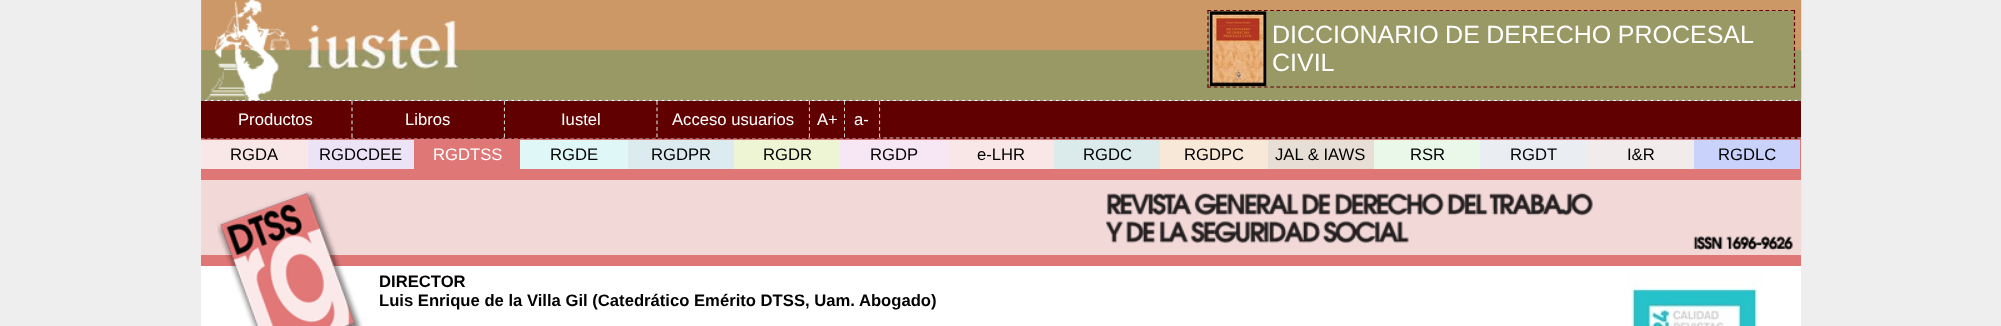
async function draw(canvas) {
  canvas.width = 2001;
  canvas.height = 326;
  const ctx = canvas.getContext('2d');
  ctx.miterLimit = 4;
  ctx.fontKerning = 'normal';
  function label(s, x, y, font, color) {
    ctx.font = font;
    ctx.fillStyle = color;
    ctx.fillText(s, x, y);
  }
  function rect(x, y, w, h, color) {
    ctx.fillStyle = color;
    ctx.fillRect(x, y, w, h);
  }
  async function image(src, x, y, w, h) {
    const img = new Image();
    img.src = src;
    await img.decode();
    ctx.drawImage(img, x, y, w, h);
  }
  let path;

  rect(0, 0, 2001, 326, '#eee');
  rect(201, 0, 1600, 326, '#fff');
  await image('assets/img1.png', 201, 0, 1601, 100);
  rect(201, 101, 1600, 38, '#600000');
  path = new Path2D('M201 100.5H1801');
  ctx.strokeStyle = '#999';
  ctx.lineWidth = 1.2;
  ctx.setLineDash([3.75, 2.51]);
  ctx.stroke(path);
  await image('assets/img2.png', 201, 0, 273, 100);
  rect(1208, 11, 586, 40, '#996');
  path = new Path2D('M1207.5 10.5H1795');
  ctx.strokeStyle = '#600000';
  ctx.setLineDash([3.75, 2.52]);
  ctx.stroke(path);
  path = new Path2D('M1794.5 10V87.5');
  ctx.setLineDash([3.75, 2.4]);
  ctx.stroke(path);
  path = new Path2D('M1207.5 87H1795');
  ctx.setLineDash([3.75, 2.52]);
  ctx.stroke(path);
  path = new Path2D('M1208 10V87.5');
  ctx.setLineDash([3.75, 2.4]);
  ctx.stroke(path);
  await image('assets/img3.png', 1210, 11, 57, 76);
  ctx.wordSpacing = '-0.5px';
  label('DICCIONARIO DE DERECHO PROCESAL', 1272, 43, '25px Liberation Sans', '#fff');
  ctx.wordSpacing = '0px';
  label('CIVIL', 1272, 71, '25px Liberation Sans', '#fff');
  path = new Path2D('M201 138H1801');
  ctx.strokeStyle = '#ccc';
  ctx.setLineDash([3.75, 2.51]);
  ctx.stroke(path);
  path = new Path2D('M352 101V137.5');
  ctx.setLineDash([3.75, 2.75]);
  ctx.stroke(path);
  rect(201, 101, 148, 37, '#600000');
  label('Productos', 238, 125, '16.65px Liberation Sans', '#fff');
  path = new Path2D('M504.5 101V137.5');
  ctx.stroke(path);
  rect(353, 101, 150, 37, '#600000');
  label('Libros', 405, 125, '16.65px Liberation Sans', '#fff');
  path = new Path2D('M657 101V137.5');
  ctx.stroke(path);
  rect(505, 101, 150, 37, '#600000');
  label('Iustel', 561, 125, '16.65px Liberation Sans', '#fff');
  path = new Path2D('M809.5 101V137.5');
  ctx.stroke(path);
  rect(658, 101, 148, 37, '#600000');
  label('Acceso usuarios', 672, 125, '16.65px Liberation Sans', '#fff');
  path = new Path2D('M844.5 101V137.5');
  ctx.stroke(path);
  rect(810, 101, 34, 37, '#600000');
  label('A+', 817, 125, '16.65px Liberation Sans', '#fff');
  path = new Path2D('M879.5 101V137.5');
  ctx.stroke(path);
  rect(845, 101, 34, 37, '#600000');
  label('a-', 854, 125, '16.65px Liberation Sans', '#fff');
  rect(201, 139, 1600, 41, '#e07777');
  rect(201, 140, 107, 29, '#f9e6e6');
  label('RGDA', 230, 160, '16.65px Liberation Sans', '#000');
  rect(308, 140, 106, 29, '#ede3f7');
  label('RGDCDEE', 319, 160, '16.65px Liberation Sans', '#000');
  label('RGDTSS', 433, 160, '16.65px Liberation Sans', '#fff');
  rect(520, 140, 108, 29, '#e0f7f7');
  label('RGDE', 550, 160, '16.65px Liberation Sans', '#000');
  rect(628, 140, 106, 29, '#dbebef');
  label('RGDPR', 651, 160, '16.65px Liberation Sans', '#000');
  rect(734, 140, 106, 29, '#eef5d5');
  label('RGDR', 763, 160, '16.65px Liberation Sans', '#000');
  rect(840, 140, 108, 29, '#f7e6f3');
  label('RGDP', 870, 160, '16.65px Liberation Sans', '#000');
  rect(948, 140, 106, 29, '#f9e6e6');
  label('e-LHR', 977, 160, '16.65px Liberation Sans', '#000');
  rect(1054, 140, 106, 29, '#dbeaea');
  label('RGDC', 1083, 160, '16.65px Liberation Sans', '#000');
  rect(1160, 140, 108, 29, '#f8e8d8');
  label('RGDPC', 1184, 160, '16.65px Liberation Sans', '#000');
  rect(1268, 140, 106, 29, '#e7ded6');
  label('JAL & IAWS', 1275, 160, '16.65px Liberation Sans', '#000');
  rect(1374, 140, 106, 29, '#e9f8e9');
  label('RSR', 1410, 160, '16.65px Liberation Sans', '#000');
  rect(1480, 140, 108, 29, '#eaeef2');
  label('RGDT', 1510, 160, '16.65px Liberation Sans', '#000');
  rect(1588, 140, 106, 29, '#f1ebeb');
  label('I&R', 1627, 160, '16.65px Liberation Sans', '#000');
  rect(1694, 140, 106, 29, '#c9d2fb');
  label('RGDLC', 1718, 160, '16.65px Liberation Sans', '#000');
  rect(201, 180, 905, 75, '#f3d8d8');
  await image('assets/img4.png', 1106, 180, 696, 75);
  rect(201, 255, 1600, 11, '#e07777');
  await image('assets/img5.png', 217, 191, 146, 135);
  label('DIRECTOR', 379, 287, 'bold 16.65px Liberation Sans', '#000');
  await image('assets/img6.png', 1628, 272, 136, 54);
  label('Luis Enrique de la Villa Gil (Catedrático Emérito DTSS, Uam. Abogado)', 379, 306, 'bold 16.65px Liberation Sans', '#000');
}

draw(document.querySelector('canvas'));
